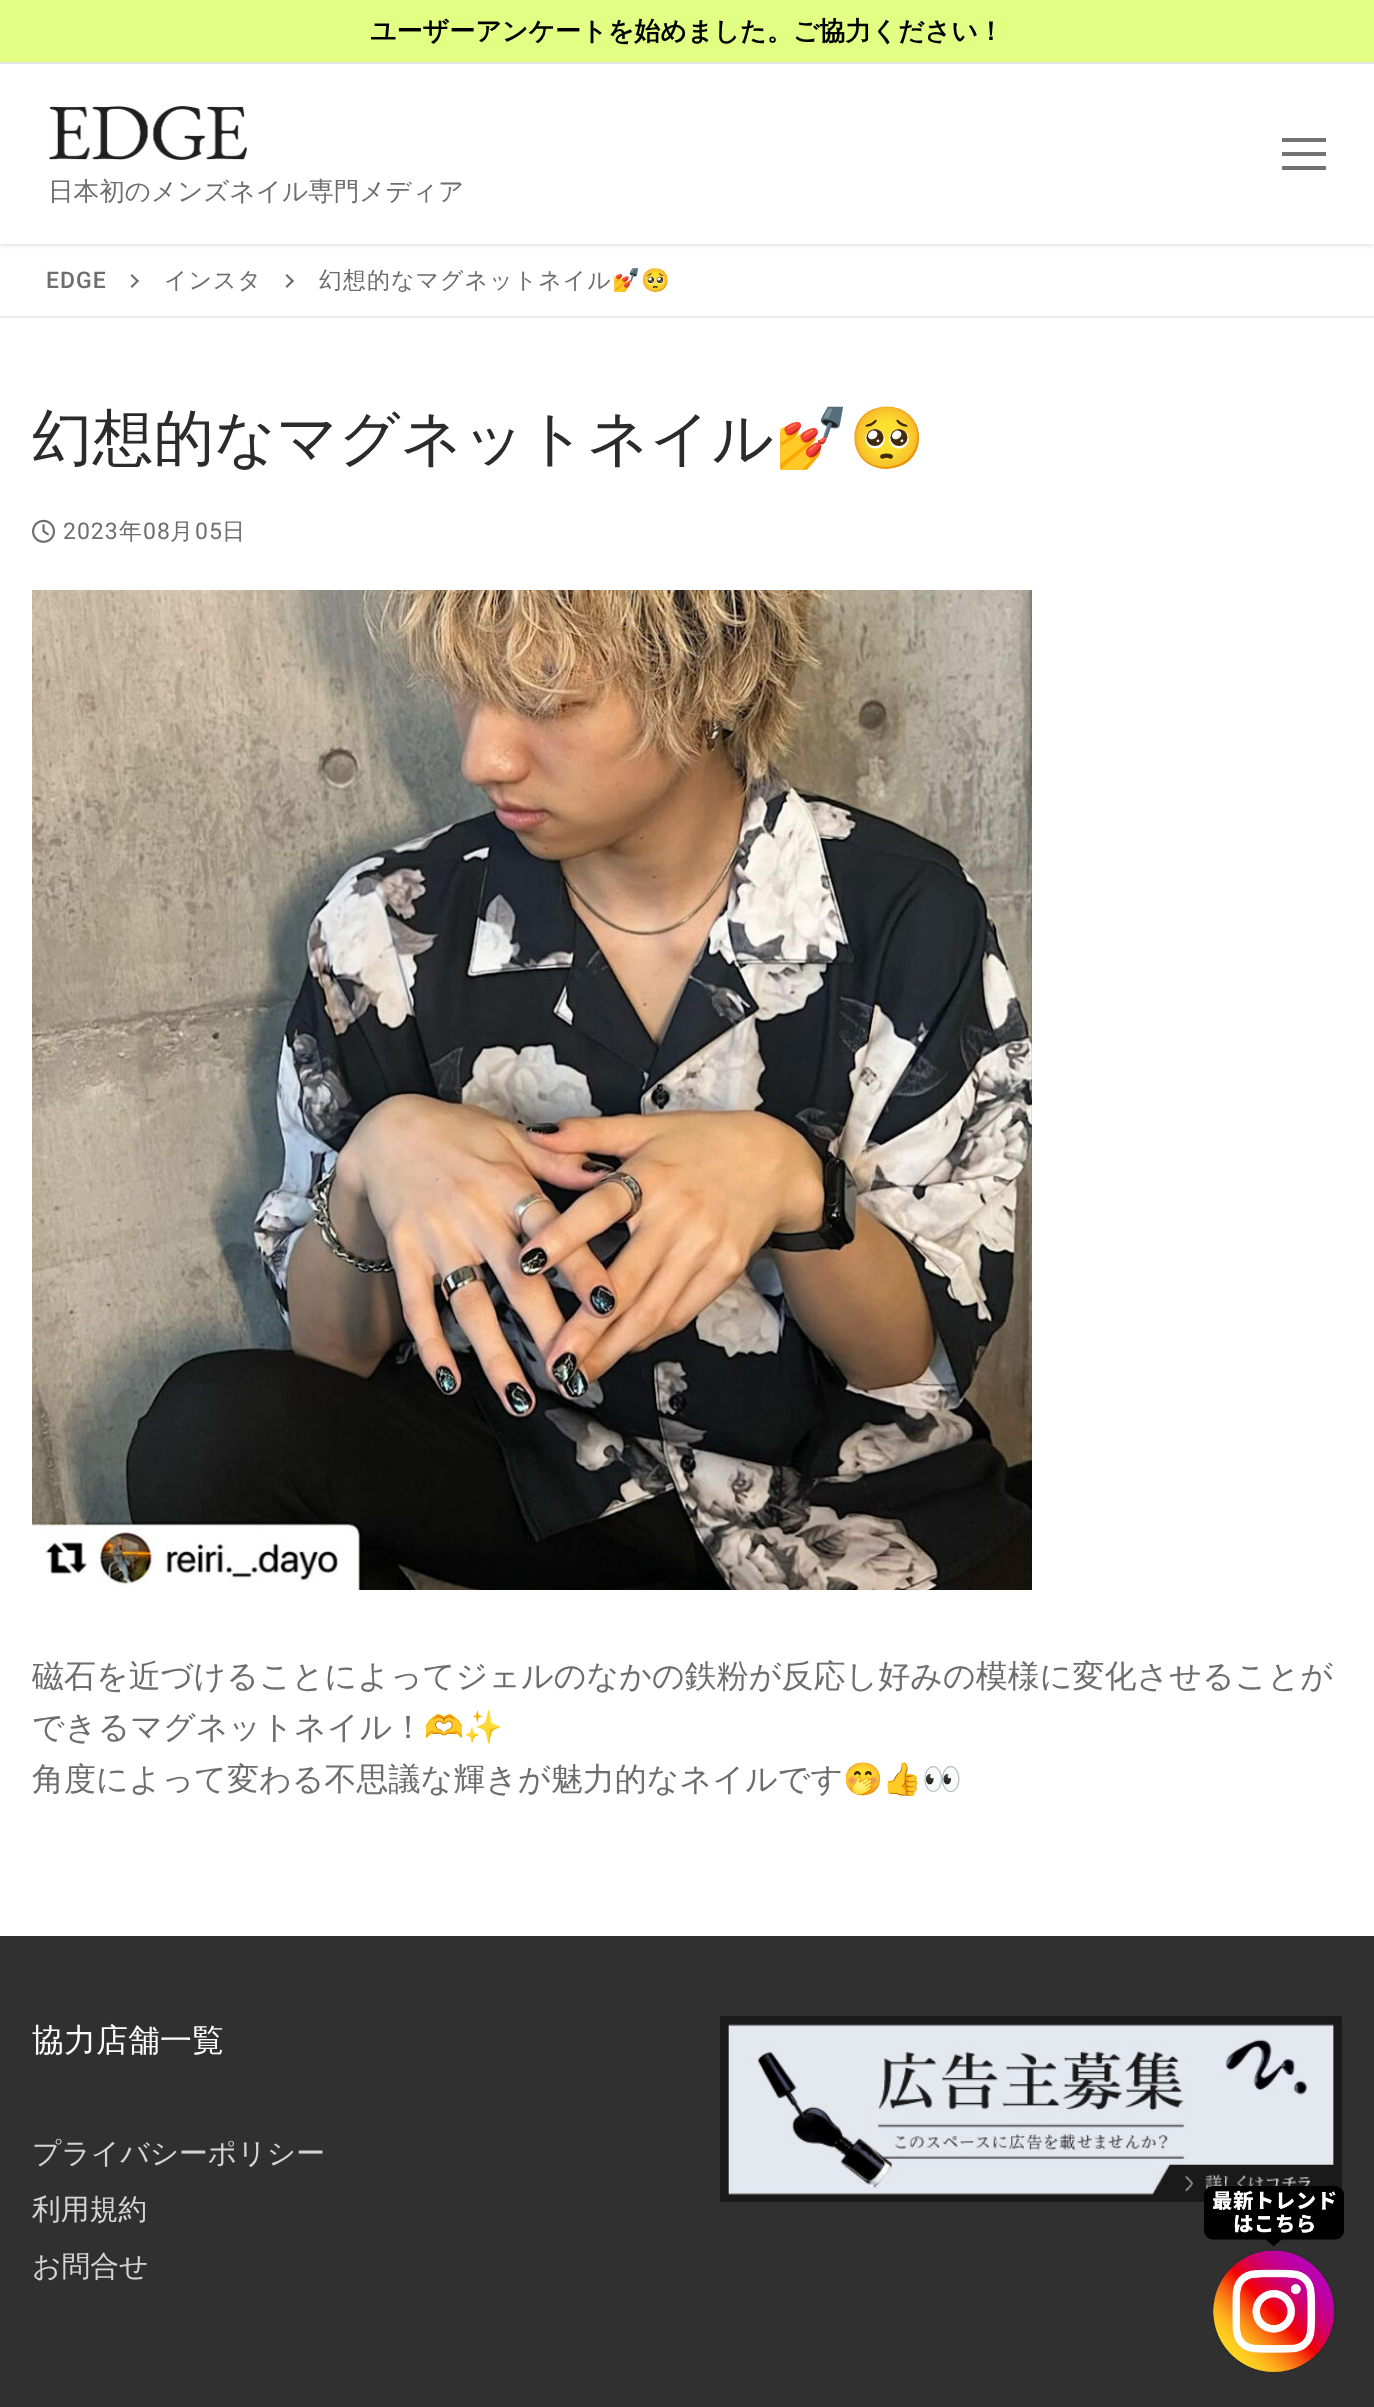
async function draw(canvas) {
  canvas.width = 1374;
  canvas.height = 2407;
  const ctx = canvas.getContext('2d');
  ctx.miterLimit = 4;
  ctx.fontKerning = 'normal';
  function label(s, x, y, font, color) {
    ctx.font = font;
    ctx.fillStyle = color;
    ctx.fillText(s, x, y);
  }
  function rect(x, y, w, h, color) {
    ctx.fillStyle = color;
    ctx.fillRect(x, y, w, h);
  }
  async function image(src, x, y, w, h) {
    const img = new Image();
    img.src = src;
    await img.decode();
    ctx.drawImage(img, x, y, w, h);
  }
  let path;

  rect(0, 0, 1374, 2407, '#fff');
  rect(0, 0, 1374, 62, '#e3ff83');
  rect(0, 62, 1374, 2, '#e7e7e7');
  label('ユーザーアンケートを始めました。ご協力ください！', 370, 40, 'bold 26px WenQuanYi Zen Hei', '#000');
  ctx.save();
  path = new Path2D('M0 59H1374V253H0ZM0 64H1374V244H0Z');
  ctx.clip(path, 'evenodd');
  ctx.fillStyle = '#e1e5ea';
  ctx.filter = 'blur(2px)';
  ctx.beginPath();
  ctx.rect(0, 66, 1374, 180);
  ctx.fill();
  ctx.filter = 'none';
  ctx.restore();
  rect(1282, 152, 44, 4, '#737373');
  rect(1282, 138, 44, 4, '#737373');
  rect(1282, 166, 44, 4, '#737373');
  await image('assets/img1.png', 49, 106, 199, 54);
  label('日本初のメンズネイル専門メディア', 48, 200, '500 25.6px WenQuanYi Zen Hei', '#6d6d6d');
  rect(0, 316, 1374, 2, '#eaecee');
  ctx.letterSpacing = '1px';
  label('EDGE', 46, 288, '500 23px Roboto', '#6d6d6d');
  path = new Path2D('M139 281L132 288L130.5 286.5L137.5 279.5Z');
  ctx.fill(path);
  path = new Path2D('M139 281L137.5 282.5L130.5 275.5L132 274Z');
  ctx.fill(path);
  label('インスタ', 164, 288, '500 23px WenQuanYi Zen Hei', '#6d6d6d');
  path = new Path2D('M294 281L287 288L285.5 286.5L292.5 279.5Z');
  ctx.fill(path);
  path = new Path2D('M294 281L292.5 282.5L285.5 275.5L287 274Z');
  ctx.fill(path);
  label('幻想的なマグネットネイル', 319, 288, '500 23px WenQuanYi Zen Hei', '#6d6d6d');
  label('💅🥺', 612, 288, '23px Noto Color Emoji', '#6d6d6d');
  ctx.letterSpacing = '0px';
  label('幻想的なマグネットネイル', 32, 459, '500 60.75px WenQuanYi Zen Hei', '#2b2b2b');
  label('💅🥺', 774, 459, '60.75px Noto Color Emoji', '#2b2b2b');
  await image('assets/img2.png', 32, 519, 23, 24);
  ctx.letterSpacing = '1px';
  label('2023', 63, 539, '23px Roboto', '#6d6d6d');
  label('年', 119, 539, '500 23px WenQuanYi Zen Hei', '#6d6d6d');
  label('08', 143, 539, '23px Roboto', '#6d6d6d');
  label('月', 170, 539, '500 23px WenQuanYi Zen Hei', '#6d6d6d');
  label('05', 195, 539, '23px Roboto', '#6d6d6d');
  label('日', 222, 539, '500 23px WenQuanYi Zen Hei', '#6d6d6d');
  await image('assets/img3.png', 32, 590, 1000, 1000);
  ctx.letterSpacing = '0px';
  label('磁石を近づけることによってジェルのなかの鉄粉が反応し好みの模様に変化させることが', 32, 1687, '500 32px WenQuanYi Zen Hei', '#6d6d6d');
  label('できるマグネットネイル！', 32, 1738, '500 32px WenQuanYi Zen Hei', '#6d6d6d');
  label('🫶✨', 424, 1738, '32px Noto Color Emoji', '#6d6d6d');
  label('角度によって変わる不思議な輝きが魅力的なネイルです', 32, 1790, '500 32px WenQuanYi Zen Hei', '#6d6d6d');
  label('🤭👍👀', 843, 1790, '32px Noto Color Emoji', '#6d6d6d');
  rect(0, 1936, 1374, 471, '#303030');
  label('協力店舗一覧', 32, 2051, '500 32px WenQuanYi Zen Hei', '#fdfdfd');
  label('プライバシーポリシー', 32, 2163, '500 28.75px WenQuanYi Zen Hei', '#d4d4d4');
  label('利用規約', 32, 2219, '500 28.75px WenQuanYi Zen Hei', '#d4d4d4');
  label('お問合せ', 32, 2276, '500 28.75px WenQuanYi Zen Hei', '#d4d4d4');
  await image('assets/img4.png', 720, 2016, 622, 186);
  await image('assets/img5.png', 1204, 2186, 140, 186);
}

draw(document.querySelector('canvas'));
